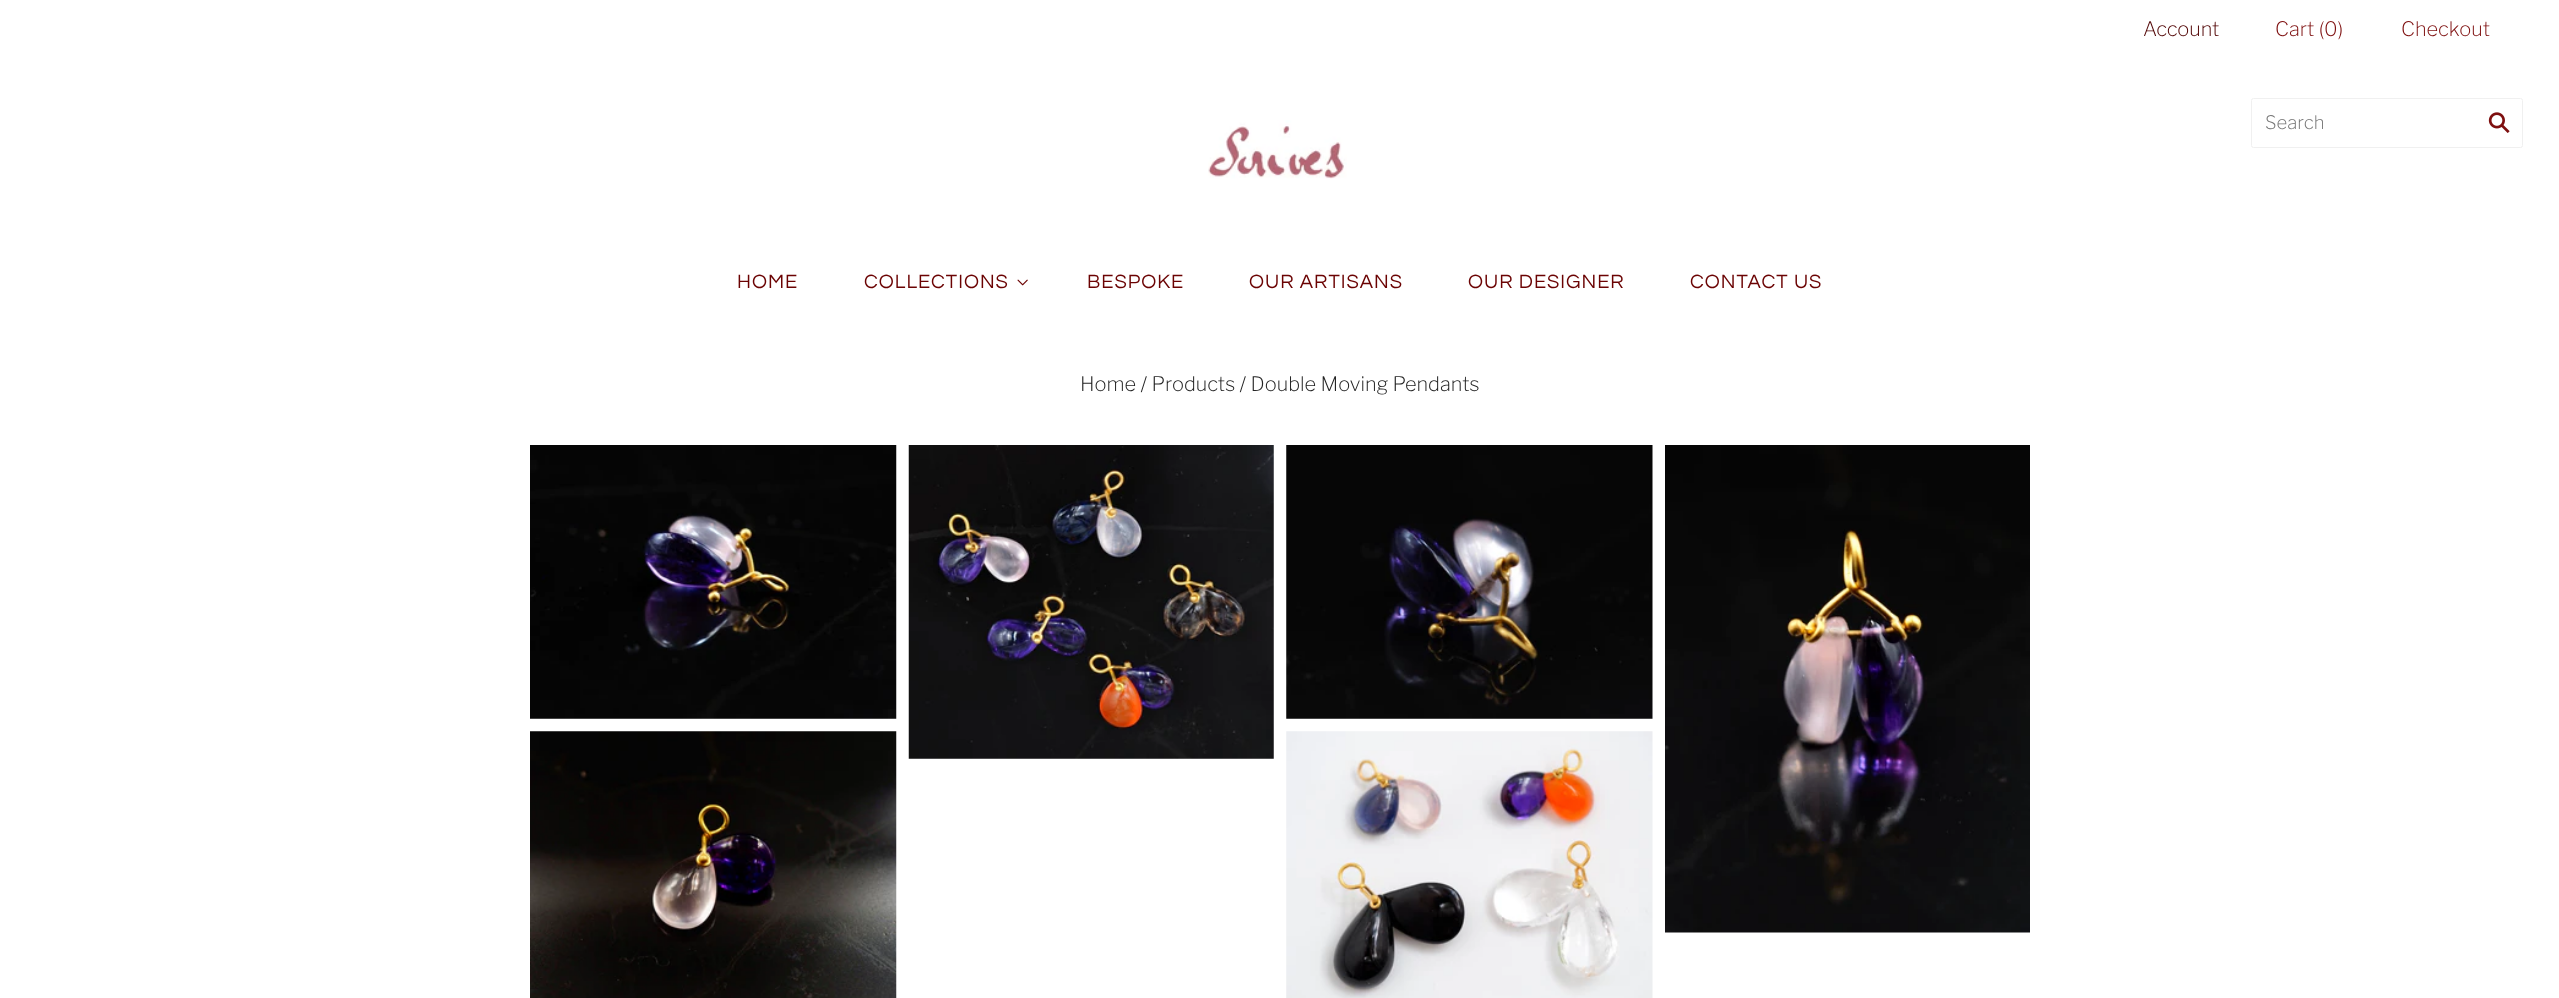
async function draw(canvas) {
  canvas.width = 2559;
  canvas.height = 998;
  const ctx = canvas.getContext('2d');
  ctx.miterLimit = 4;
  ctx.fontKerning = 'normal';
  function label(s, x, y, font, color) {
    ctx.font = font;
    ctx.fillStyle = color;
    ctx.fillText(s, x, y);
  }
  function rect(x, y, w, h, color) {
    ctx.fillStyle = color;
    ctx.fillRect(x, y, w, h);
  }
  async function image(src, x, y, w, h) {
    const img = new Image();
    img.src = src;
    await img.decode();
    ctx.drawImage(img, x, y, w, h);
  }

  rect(0, 0, 2559, 998, '#fff');
  label('Account', 2143, 36, '200 20px Libre Franklin', '#500303');
  label('Cart (0)', 2275, 36, '200 20px Libre Franklin', '#7e0f0f');
  label('Checkout', 2401, 36, '200 20px Libre Franklin', '#7e0f0f');
  await image('assets/img1.png', 1208, 120, 139, 59);
  ctx.beginPath();
  ctx.roundRect(2251.5, 98.5, 271, 49, 2);
  ctx.strokeStyle = '#f0f0f0';
  ctx.stroke();
  label('Search', 2265, 129, '200 18.5px Libre Franklin', '#757575');
  await image('assets/img2.png', 2488, 112, 22, 21);
  ctx.letterSpacing = '1px';
  label('HOME', 737, 288, '20px Questrial', '#6b0303');
  label('COLLECTIONS', 864, 288, '20px Questrial', '#6b0303');
  await image('assets/img3.png', 1017, 279, 11, 7);
  label('BESPOKE', 1087, 288, '20px Questrial', '#6b0303');
  label('OUR ARTISANS', 1249, 288, '20px Questrial', '#6b0303');
  label('OUR DESIGNER', 1468, 288, '20px Questrial', '#6b0303');
  label('CONTACT US', 1690, 288, '20px Questrial', '#6b0303');
  ctx.letterSpacing = '0px';
  label('Home / Products / Double Moving Pendants', 1080, 391, '200 20px Libre Franklin', '#242424');
  await image('assets/img4.png', 530, 445, 367, 274);
  await image('assets/img5.png', 908, 445, 366, 314);
  await image('assets/img6.png', 1286, 445, 367, 274);
  await image('assets/img7.png', 1665, 445, 365, 488);
  await image('assets/img8.png', 530, 731, 367, 267);
  await image('assets/img9.png', 1286, 731, 367, 267);
}

draw(document.querySelector('canvas'));
